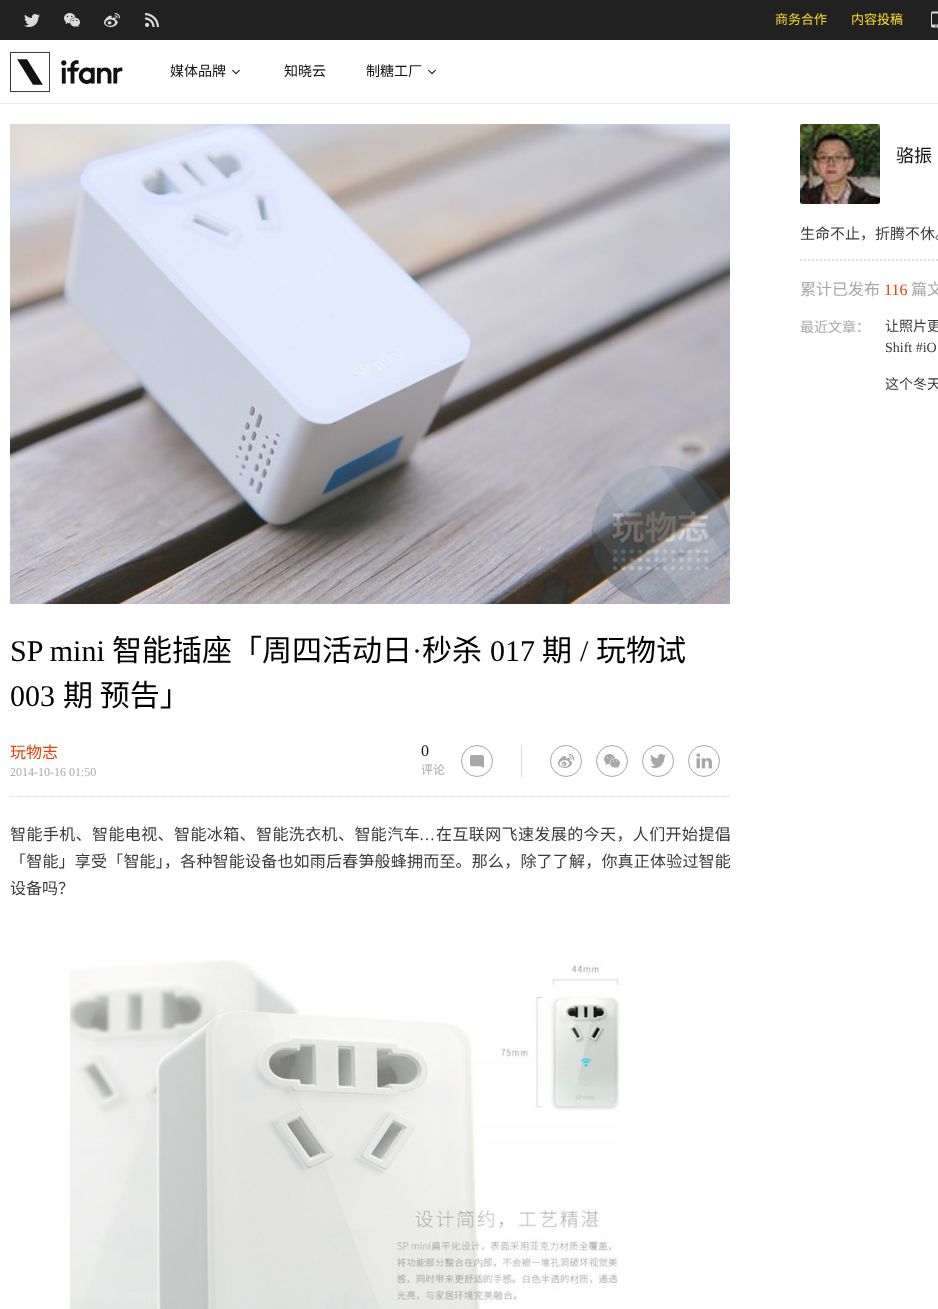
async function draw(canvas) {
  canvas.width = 938;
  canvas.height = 1309;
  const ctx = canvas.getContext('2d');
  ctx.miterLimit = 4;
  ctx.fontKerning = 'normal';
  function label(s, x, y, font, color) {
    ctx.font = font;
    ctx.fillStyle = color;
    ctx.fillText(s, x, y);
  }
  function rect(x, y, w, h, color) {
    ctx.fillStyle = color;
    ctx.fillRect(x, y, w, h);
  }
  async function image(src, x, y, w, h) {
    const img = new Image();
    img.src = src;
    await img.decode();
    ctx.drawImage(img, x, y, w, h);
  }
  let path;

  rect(0, 0, 938, 1309, '#fff');
  rect(0, 0, 938, 40, '#212121');
  await image('assets/img1.png', 24, 14, 16, 13);
  await image('assets/img2.png', 64, 13, 16, 14);
  await image('assets/img3.png', 104, 13, 16, 14);
  await image('assets/img4.png', 145, 13, 14, 14);
  label('商务合作', 775, 24, '13px Noto Sans CJK SC', '#fadc23');
  label('内容投稿', 851, 24, '13px Noto Sans CJK SC', '#fadc23');
  await image('assets/img5.png', 931, 11, 7, 17);
  rect(0, 103, 938, 1, '#ededed');
  await image('assets/img6.png', 10, 52, 113, 40);
  label('媒体品牌', 170, 76, '14px Noto Sans CJK SC', '#121212');
  await image('assets/img7.png', 232, 69, 8, 6);
  label('知晓云', 284, 76, '14px Noto Sans CJK SC', '#121212');
  label('制糖工厂', 366, 76, '14px Noto Sans CJK SC', '#121212');
  await image('assets/img7.png', 428, 69, 8, 6);
  await image('assets/img8.png', 800, 124, 80, 80);
  label('骆振', 896, 162, '18px Noto Sans CJK SC', '#121212');
  path = new Path2D('M800 260H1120');
  ctx.strokeStyle = '#e0e0e0';
  ctx.lineWidth = 2;
  ctx.setLineDash([2, 2]);
  ctx.stroke(path);
  label('生命不止，折腾不休。', 800, 239, '15px Noto Sans CJK SC', '#3a3a3a');
  label('累计已发布', 800, 295, '16px Noto Sans CJK SC', '#a8a8a8');
  label('116', 884, 295, '16px Liberation Serif', '#f13b03');
  label('篇文', 911, 295, '16px Noto Sans CJK SC', '#a8a8a8');
  label('最近文章：', 800, 332, '14px Noto Sans CJK SC', '#a8a8a8');
  label('让照片更', 885, 331, '14px Noto Sans CJK SC', '#3a3a3a');
  label('Shift #iO', 885, 352, '14px Liberation Serif', '#3a3a3a');
  label('这个冬天', 885, 389, '14px Noto Sans CJK SC', '#3a3a3a');
  await image('assets/img9.png', 10, 124, 720, 480);
  label('SP mini', 10, 661, '30px Liberation Serif', '#000');
  label('智能插座「周四活动日', 112, 661, '30px Noto Sans CJK SC', '#000');
  label('·', 412, 661, '30px Liberation Serif', '#000');
  label('秒杀', 422, 661, '30px Noto Sans CJK SC', '#000');
  label('017', 490, 661, '30px Liberation Serif', '#000');
  label('期', 542, 661, '30px Noto Sans CJK SC', '#000');
  label('/', 580, 661, '30px Liberation Serif', '#000');
  label('玩物试', 596, 661, '30px Noto Sans CJK SC', '#000');
  label('003', 10, 706, '30px Liberation Serif', '#000');
  label('期 预告」', 63, 706, '30px Noto Sans CJK SC', '#000');
  path = new Path2D('M10 796.5H730');
  ctx.strokeStyle = '#dadada';
  ctx.lineWidth = 1;
  ctx.setLineDash([1, 1]);
  ctx.stroke(path);
  label('玩物志', 10, 758, '16px Noto Sans CJK SC', '#f13b03');
  label('2014-10-16 01:50', 10, 776, '12px Liberation Serif', '#a8a8a8');
  label('0', 421, 756, '16px Liberation Serif', '#121212');
  label('评论', 421, 774, '12px Noto Sans CJK SC', '#a8a8a8');
  ctx.beginPath();
  ctx.arc(477, 761, 15.5, 0, 2 * Math.PI);
  ctx.strokeStyle = '#a8a8a8';
  ctx.setLineDash([]);
  ctx.stroke();
  await image('assets/img10.png', 470, 755, 14, 13);
  rect(521, 745, 1, 32, '#dadada');
  ctx.beginPath();
  ctx.arc(566, 761, 15.5, 0, 2 * Math.PI);
  ctx.stroke();
  await image('assets/img11.png', 558, 754, 16, 14);
  ctx.beginPath();
  ctx.arc(612, 761, 15.5, 0, 2 * Math.PI);
  ctx.stroke();
  await image('assets/img12.png', 604, 754, 16, 14);
  ctx.beginPath();
  ctx.arc(658, 761, 15.5, 0, 2 * Math.PI);
  ctx.stroke();
  await image('assets/img13.png', 650, 754, 16, 14);
  ctx.beginPath();
  ctx.arc(704, 761, 15.5, 0, 2 * Math.PI);
  ctx.stroke();
  await image('assets/img14.png', 696, 753, 16, 16);
  ctx.letterSpacing = '0.4px';
  label('智能手机、智能电视、智能冰箱、智能洗衣机、智能汽车', 10, 840, '16px Noto Sans CJK SC', '#3a3a3a');
  label('…', 419, 840, '16px Liberation Serif', '#3a3a3a');
  label('在互联网飞速发展的今天，人们开始提倡', 436, 840, '16px Noto Sans CJK SC', '#3a3a3a');
  ctx.letterSpacing = '0.2px';
  label('「智能」享受「智能」，各种智能设备也如雨后春笋般蜂拥而至。那么，除了了解，你真正体验过智能', 10, 867, '16px Noto Sans CJK SC', '#3a3a3a');
  ctx.letterSpacing = '0px';
  label('设备吗？', 10, 894, '16px Noto Sans CJK SC', '#3a3a3a');
  await image('assets/img15.png', 70, 960, 550, 349);
}

draw(document.querySelector('canvas'));
